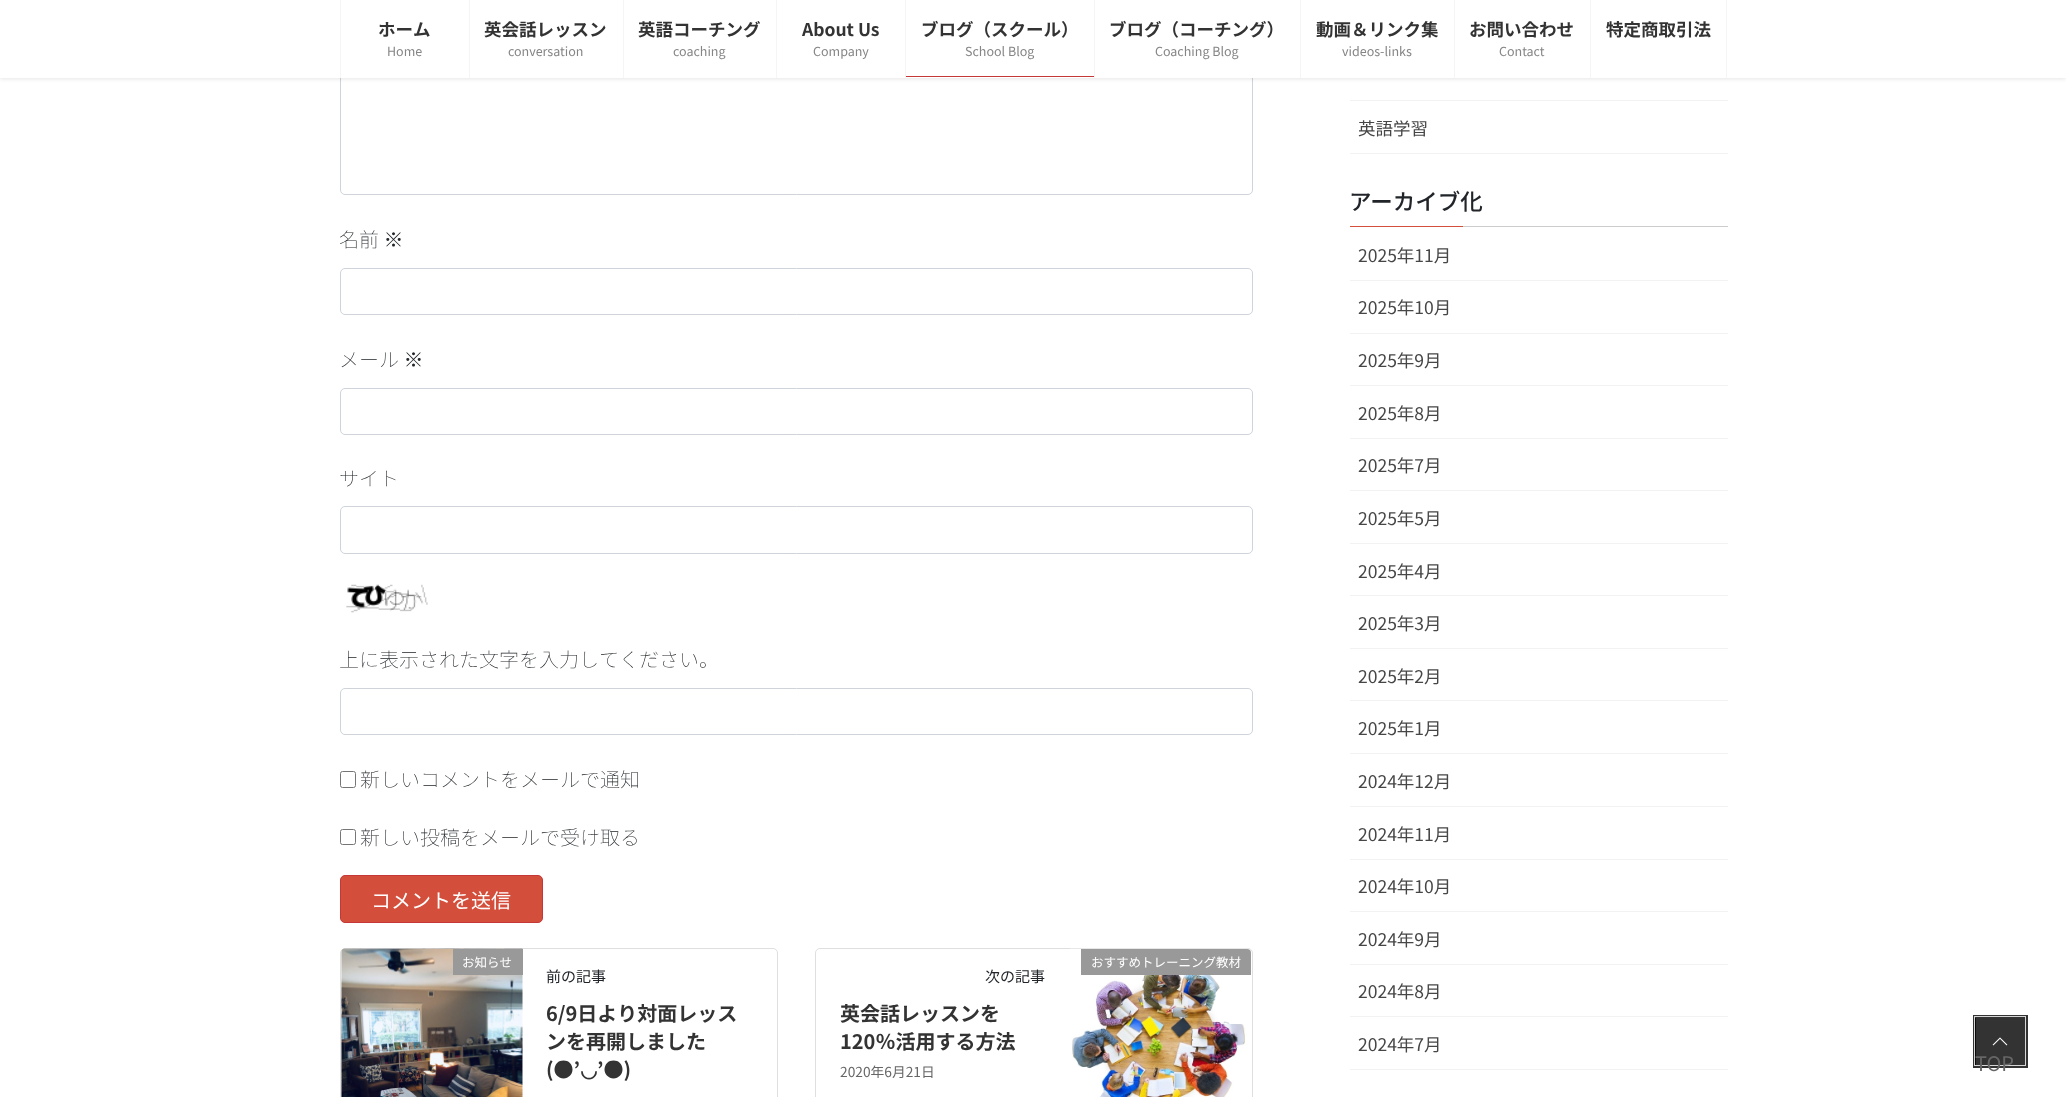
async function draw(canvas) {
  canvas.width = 2066;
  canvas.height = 1097;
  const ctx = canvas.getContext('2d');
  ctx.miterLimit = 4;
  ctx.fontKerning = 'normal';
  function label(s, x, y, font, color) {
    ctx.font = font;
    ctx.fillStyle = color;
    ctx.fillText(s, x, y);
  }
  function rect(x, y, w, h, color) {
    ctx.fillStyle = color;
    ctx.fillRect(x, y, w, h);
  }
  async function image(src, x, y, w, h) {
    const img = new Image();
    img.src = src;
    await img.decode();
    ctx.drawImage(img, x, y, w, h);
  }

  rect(0, 0, 2066, 1097, '#fff');
  ctx.beginPath();
  ctx.roundRect(340.5, -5.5, 912, 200, 4.5);
  ctx.strokeStyle = '#ced4da';
  ctx.stroke();
  ctx.fillStyle = '#0000001a';
  ctx.filter = 'blur(2px)';
  ctx.beginPath();
  ctx.rect(0, 1, 2066, 78);
  ctx.fill();
  ctx.filter = 'none';
  rect(0, 0, 2066, 78, '#fff');
  rect(340, 0, 1, 78, '#f5f5f5');
  label('ホーム', 378, 36, 'bold 17.5px Noto Sans JP', '#333');
  label('Home', 387, 56, '12.5px Noto Sans JP', '#858585');
  rect(469, 0, 1, 78, '#f5f5f5');
  label('英会話レッスン', 484, 36, 'bold 17.5px Noto Sans JP', '#333');
  label('conversation', 508, 56, '12.5px Noto Sans JP', '#858585');
  rect(623, 0, 1, 78, '#f5f5f5');
  label('英語コーチング', 638, 36, 'bold 17.5px Noto Sans JP', '#333');
  label('coaching', 673, 56, '12.5px Noto Sans JP', '#858585');
  rect(776, 0, 1, 78, '#f5f5f5');
  label('About Us', 802, 36, 'bold 17.5px Noto Sans JP', '#333');
  label('Company', 813, 56, '12.5px Noto Sans JP', '#858585');
  rect(905, 0, 1, 78, '#f5f5f5');
  label('ブログ（スクール）', 921, 36, 'bold 17.5px Noto Sans JP', '#333');
  label('School Blog', 965, 56, '12.5px Noto Sans JP', '#858585');
  rect(906, 76, 188, 1, '#c63737');
  rect(1094, 0, 1, 78, '#f5f5f5');
  label('ブログ（コーチング）', 1109, 36, 'bold 17.5px Noto Sans JP', '#333');
  label('Coaching Blog', 1155, 56, '12.5px Noto Sans JP', '#858585');
  rect(1300, 0, 1, 78, '#f5f5f5');
  label('動画＆リンク集', 1316, 36, 'bold 17.5px Noto Sans JP', '#333');
  label('videos-links', 1342, 56, '12.5px Noto Sans JP', '#858585');
  rect(1454, 0, 1, 78, '#f5f5f5');
  label('お問い合わせ', 1469, 36, 'bold 17.5px Noto Sans JP', '#333');
  label('Contact', 1499, 56, '12.5px Noto Sans JP', '#858585');
  rect(1726, 0, 1, 78, '#f5f5f5');
  rect(1590, 0, 1, 78, '#f5f5f5');
  label('特定商取引法', 1606, 36, 'bold 17.5px Noto Sans JP', '#333');
  label('名前 ※', 339, 247, '100 20px Noto Sans JP', '#212529');
  ctx.beginPath();
  ctx.roundRect(340.5, 268.5, 912, 46, 4.5);
  ctx.stroke();
  label('メール ※', 339, 367, '100 20px Noto Sans JP', '#212529');
  ctx.beginPath();
  ctx.roundRect(340.5, 388.5, 912, 46, 4.5);
  ctx.stroke();
  label('サイト', 339, 486, '100 20px Noto Sans JP', '#212529');
  ctx.beginPath();
  ctx.roundRect(340.5, 506.5, 912, 47, 4.5);
  ctx.stroke();
  await image('assets/img1.png', 346, 584, 82, 29);
  label('上に表示された文字を入力してください。', 339, 667, '100 20px Noto Sans JP', '#212529');
  ctx.beginPath();
  ctx.roundRect(340.5, 688.5, 912, 46, 4.5);
  ctx.stroke();
  ctx.beginPath();
  ctx.roundRect(340.5, 771.5, 15, 16, 2);
  ctx.strokeStyle = '#767676';
  ctx.stroke();
  label('新しいコメントをメールで通知', 360, 787, '100 20px Noto Sans JP', '#212529');
  ctx.beginPath();
  ctx.roundRect(340.5, 829.5, 15, 15, 2);
  ctx.stroke();
  label('新しい投稿をメールで受け取る', 360, 845, '100 20px Noto Sans JP', '#212529');
  ctx.fillStyle = '#d34f3b';
  ctx.beginPath();
  ctx.roundRect(340.5, 875.5, 202, 47, 4.5);
  ctx.fill();
  ctx.strokeStyle = '#c63737';
  ctx.stroke();
  label('コメントを送信', 371, 908, '20px Noto Sans JP', '#fff');
  ctx.beginPath();
  ctx.roundRect(340.5, 948.5, 437, 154, 4.5);
  ctx.strokeStyle = '#dfdfdf';
  ctx.stroke();
  await image('assets/img2.png', 341, 948, 182, 149);
  rect(453, 949, 70, 26, '#999');
  label('お知らせ', 462, 967, '12.5px Noto Sans JP', '#fff');
  label('前の記事', 546, 982, '15px Noto Sans JP', '#212529');
  label('6/9日より対面レッス', 546, 1021, 'bold 20px Noto Sans JP', '#333');
  label('ンを再開しました', 546, 1049, 'bold 20px Noto Sans JP', '#333');
  label('(●’', 546, 1077, 'bold 20px Noto Sans JP', '#333');
  label('◡', 580, 1077, 'bold 20px DejaVu Sans', '#333');
  label('’●)', 597, 1077, 'bold 20px Noto Sans JP', '#333');
  ctx.beginPath();
  ctx.roundRect(815.5, 948.5, 437, 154, 4.5);
  ctx.stroke();
  await image('assets/img3.png', 1070, 948, 181, 149);
  ctx.fillStyle = '#999';
  ctx.beginPath();
  ctx.roundRect(1081, 949, 170, 26, [0, 4, 0, 0]);
  ctx.fill();
  label('おすすめトレーニング教材', 1091, 967, '12.5px Noto Sans JP', '#fff');
  label('次の記事', 985, 982, '15px Noto Sans JP', '#212529');
  label('英会話レッスンを', 840, 1021, 'bold 20px Noto Sans JP', '#333');
  label('120％活用する方法', 840, 1049, 'bold 20px Noto Sans JP', '#333');
  label('2020年6月21日', 840, 1077, '13.75px Noto Sans JP', '#666');
  rect(1350, 100, 378, 1, '#f2f2f2');
  rect(1350, 153, 378, 1, '#f2f2f2');
  label('英語学習', 1358, 135, '17.5px Noto Sans JP', '#464646');
  rect(1463, 226, 265, 1, '#ccc');
  label('アーカイブ化', 1349, 210, '500 22.5px Noto Sans JP', '#212529');
  rect(1350, 226, 113, 1, '#d34f3b');
  rect(1350, 280, 378, 1, '#f2f2f2');
  label('2025年11月', 1358, 262, '17.5px Noto Sans JP', '#464646');
  rect(1350, 333, 378, 1, '#f2f2f2');
  label('2025年10月', 1358, 314, '17.5px Noto Sans JP', '#464646');
  rect(1350, 385, 378, 1, '#f2f2f2');
  label('2025年9月', 1358, 367, '17.5px Noto Sans JP', '#464646');
  rect(1350, 438, 378, 1, '#f2f2f2');
  label('2025年8月', 1358, 420, '17.5px Noto Sans JP', '#464646');
  rect(1350, 490, 378, 1, '#f2f2f2');
  label('2025年7月', 1358, 472, '17.5px Noto Sans JP', '#464646');
  rect(1350, 543, 378, 1, '#f2f2f2');
  label('2025年5月', 1358, 525, '17.5px Noto Sans JP', '#464646');
  rect(1350, 595, 378, 1, '#f2f2f2');
  label('2025年4月', 1358, 578, '17.5px Noto Sans JP', '#464646');
  rect(1350, 648, 378, 1, '#f2f2f2');
  label('2025年3月', 1358, 630, '17.5px Noto Sans JP', '#464646');
  rect(1350, 700, 378, 1, '#f2f2f2');
  label('2025年2月', 1358, 683, '17.5px Noto Sans JP', '#464646');
  rect(1350, 753, 378, 1, '#f2f2f2');
  label('2025年1月', 1358, 735, '17.5px Noto Sans JP', '#464646');
  rect(1350, 806, 378, 1, '#f2f2f2');
  label('2024年12月', 1358, 788, '17.5px Noto Sans JP', '#464646');
  rect(1350, 859, 378, 1, '#f2f2f2');
  label('2024年11月', 1358, 841, '17.5px Noto Sans JP', '#464646');
  rect(1350, 911, 378, 1, '#f2f2f2');
  label('2024年10月', 1358, 893, '17.5px Noto Sans JP', '#464646');
  rect(1350, 964, 378, 1, '#f2f2f2');
  label('2024年9月', 1358, 946, '17.5px Noto Sans JP', '#464646');
  rect(1350, 1016, 378, 1, '#f2f2f2');
  label('2024年8月', 1358, 998, '17.5px Noto Sans JP', '#464646');
  rect(1350, 1069, 378, 1, '#f2f2f2');
  label('2024年7月', 1358, 1051, '17.5px Noto Sans JP', '#464646');
  ctx.strokeStyle = '#333';
  ctx.lineWidth = 3;
  ctx.strokeRect(1974.5, 1016.5, 52, 50);
  ctx.strokeStyle = '#d6d6d6';
  ctx.lineWidth = 1;
  ctx.strokeRect(1974.5, 1016.5, 51, 49);
  rect(1975, 1018, 50, 47, '#000000cc');
  await image('assets/img4.png', 1992, 1037, 16, 9);
  label('TOP', 1975, 1071, '20px Noto Sans JP', '#666');
}

draw(document.querySelector('canvas'));
